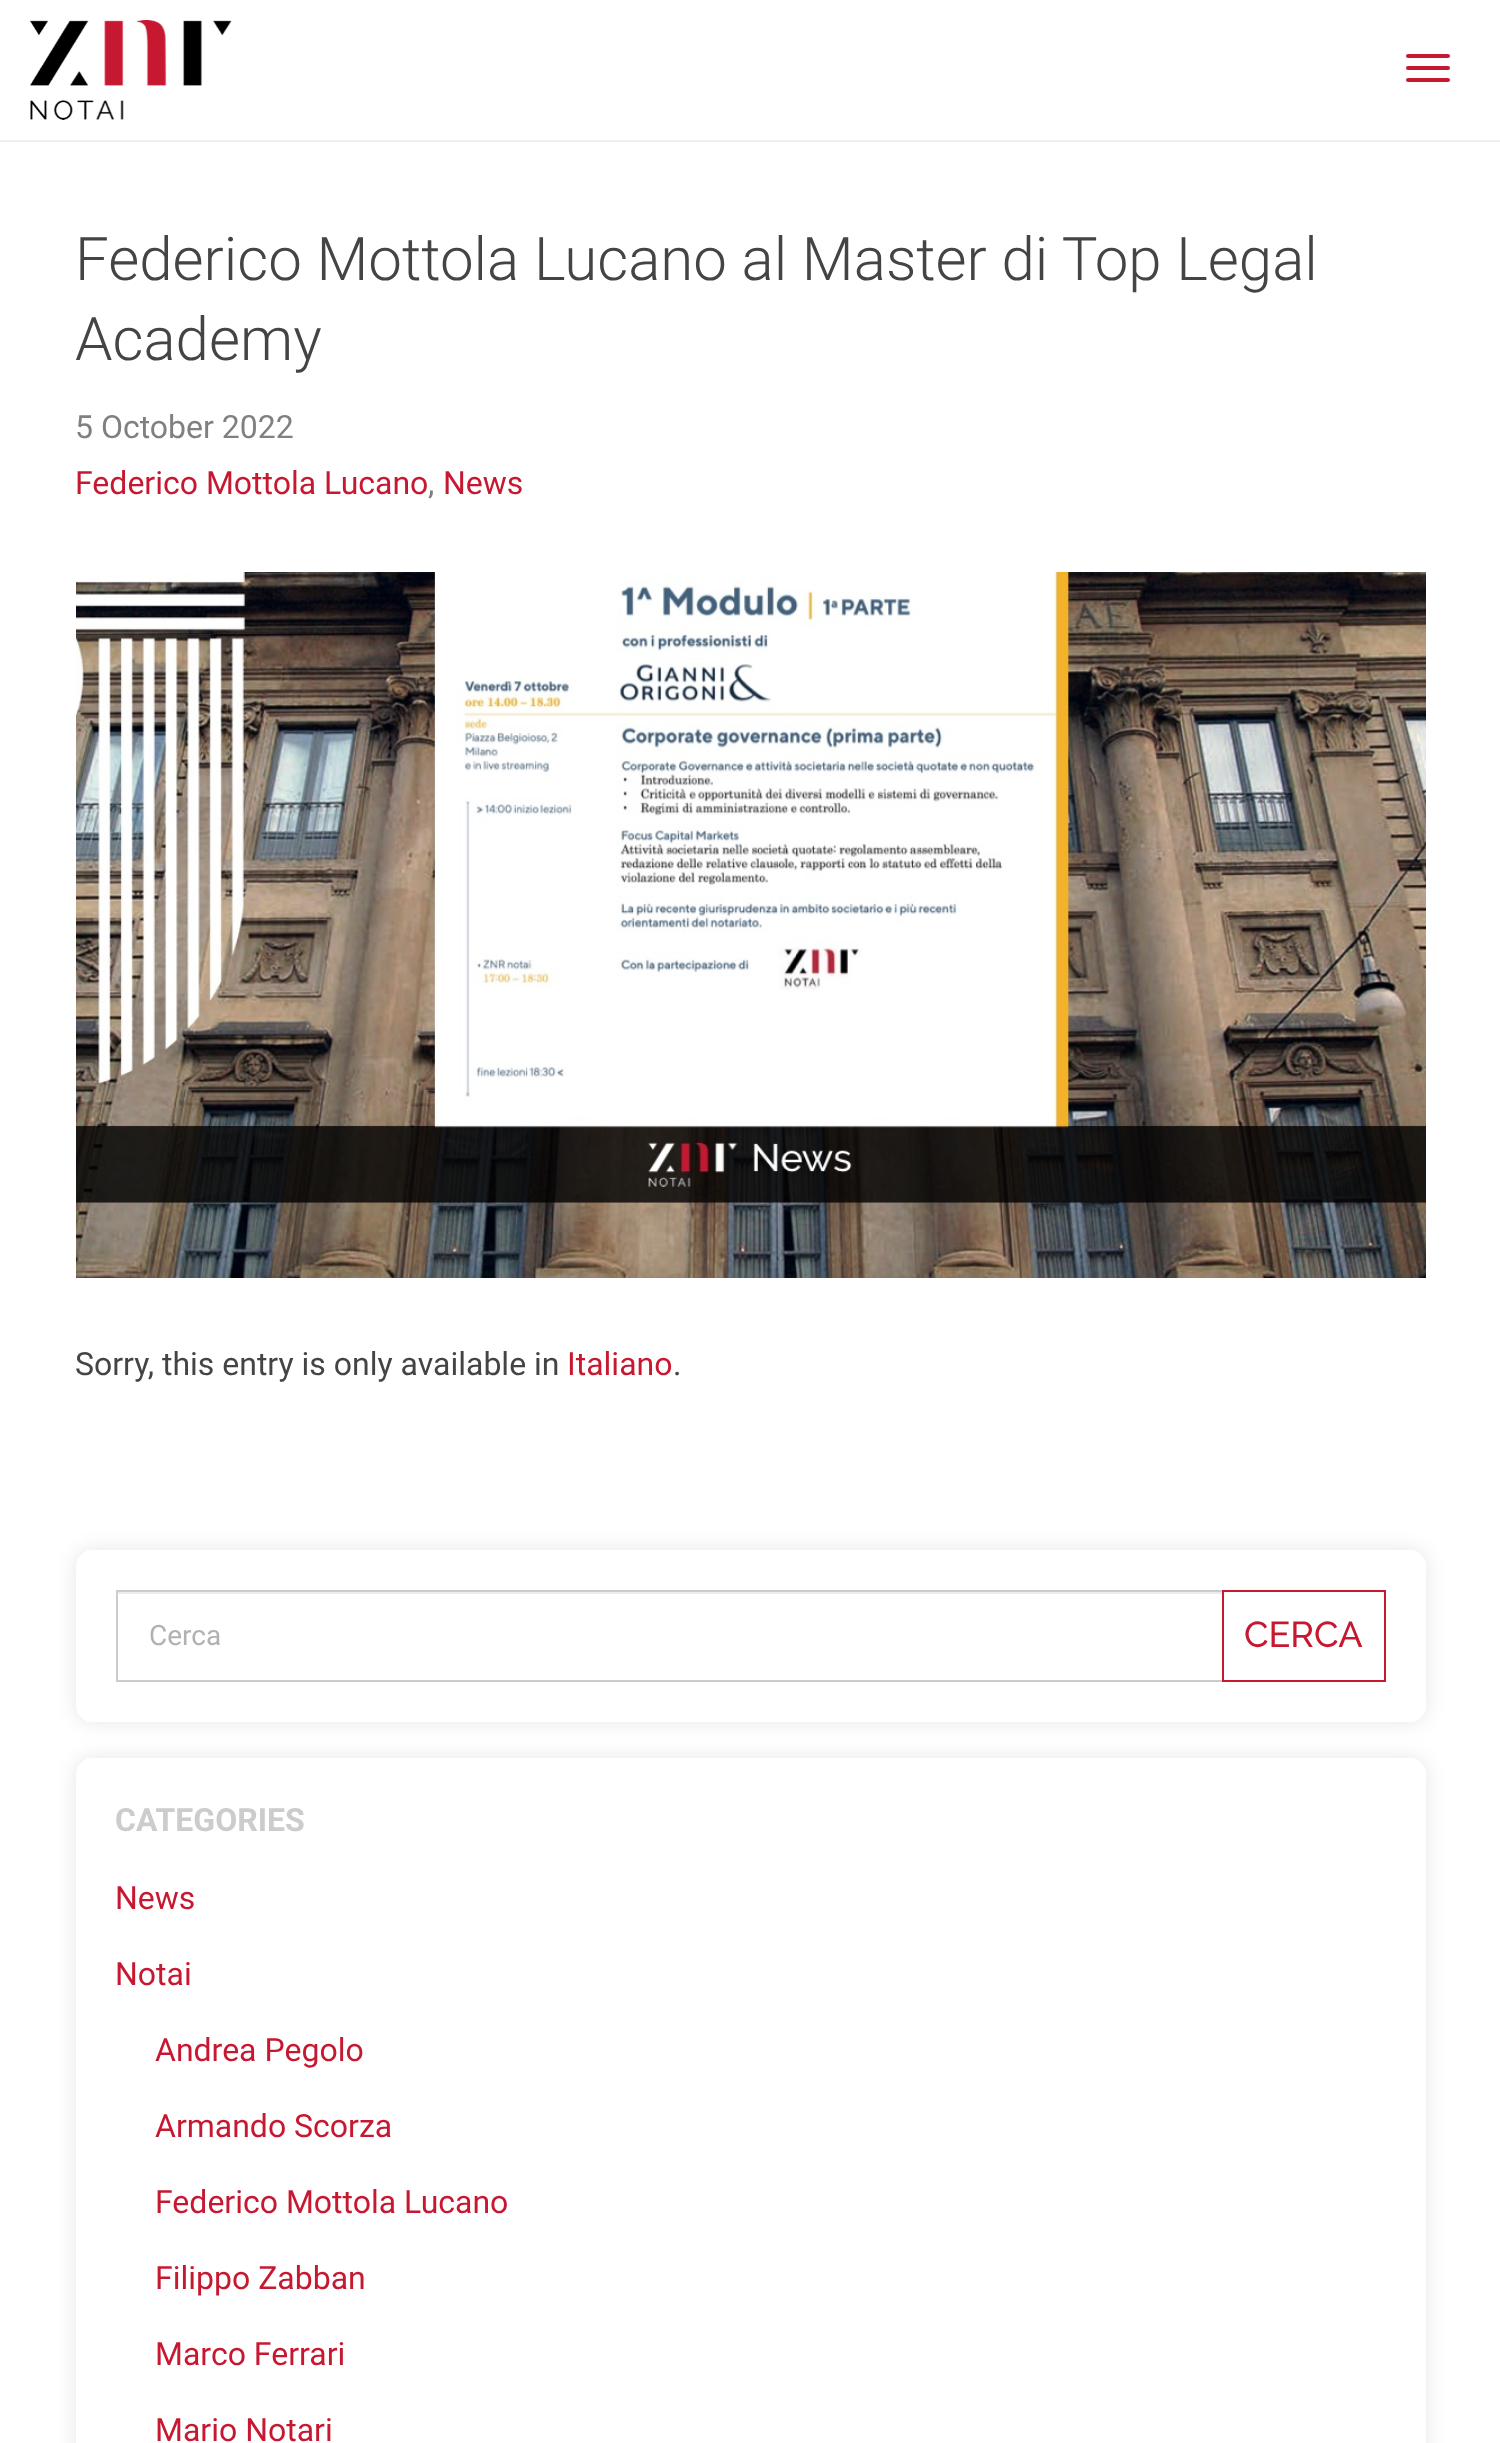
async function draw(canvas) {
  canvas.width = 1500;
  canvas.height = 2443;
  const ctx = canvas.getContext('2d');
  ctx.miterLimit = 4;
  ctx.fontKerning = 'normal';
  function label(s, x, y, font, color) {
    ctx.font = font;
    ctx.fillStyle = color;
    ctx.fillText(s, x, y);
  }
  function rect(x, y, w, h, color) {
    ctx.fillStyle = color;
    ctx.fillRect(x, y, w, h);
  }
  function roundedRect(x, y, w, h, r, color) {
    ctx.fillStyle = color;
    ctx.beginPath();
    ctx.roundRect(x, y, w, h, r);
    ctx.fill();
  }
  async function image(src, x, y, w, h) {
    const img = new Image();
    img.src = src;
    await img.decode();
    ctx.drawImage(img, x, y, w, h);
  }

  rect(0, 0, 1500, 2443, '#fff');
  rect(0, 140, 1500, 2, '#eee');
  await image('assets/img1.png', 30, 20, 202, 100);
  roundedRect(1406, 54, 44, 4, 2, '#c71831');
  roundedRect(1406, 66, 44, 4, 2, '#c71831');
  roundedRect(1406, 78, 44, 4, 2, '#c71831');
  label('Federico Mottola Lucano al Master di Top Legal', 75, 280, '300 60px Roboto', '#444');
  label('Academy', 75, 360, '300 60px Roboto', '#444');
  label('5 October 2022', 75, 438, '32px Roboto', '#808080');
  label('Federico Mottola Lucano', 75, 494, '32px Roboto', '#c71831');
  label(',', 428, 494, '32px Roboto', '#808080');
  label('News', 443, 494, '32px Roboto', '#c71831');
  await image('assets/img2.png', 76, 572, 1350, 706);
  label('Sorry, this entry is only available in', 75, 1375, '32px Roboto', '#444');
  label('Italiano', 567, 1375, '32px Roboto', '#c71831');
  label('.', 673, 1375, '32px Roboto', '#444');
  ctx.fillStyle = '#0000001a';
  ctx.filter = 'blur(10px)';
  ctx.beginPath();
  ctx.roundRect(76, 1550, 1350, 172, 16);
  ctx.fill();
  ctx.filter = 'none';
  roundedRect(76, 1550, 1350, 172, 16, '#fff');
  rect(118, 1592, 1104, 2, '#ececec');
  rect(116, 1590, 1106, 2, '#ccc');
  rect(116, 1680, 1106, 2, '#ccc');
  rect(116, 1590, 2, 92, '#ccc');
  label('Cerca', 149, 1645, '28px Roboto', '#b1b1b1');
  ctx.strokeStyle = '#c71831';
  ctx.lineWidth = 2;
  ctx.strokeRect(1223, 1591, 162, 90);
  label('CERCA', 1244, 1647, '500 36px Raleway', '#c71831');
  ctx.fillStyle = '#0000001a';
  ctx.filter = 'blur(10px)';
  ctx.beginPath();
  ctx.roundRect(76, 1758, 1350, 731, 16);
  ctx.fill();
  ctx.filter = 'none';
  roundedRect(76, 1758, 1350, 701, 16, '#fff');
  label('CATEGORIES', 115, 1831, 'bold 32px Roboto', '#ccc');
  label('News', 115, 1909, '32px Roboto', '#c71831');
  label('Notai', 115, 1985, '32px Roboto', '#c71831');
  label('Andrea Pegolo', 155, 2061, '32px Roboto', '#c71831');
  label('Armando Scorza', 155, 2137, '32px Roboto', '#c71831');
  label('Federico Mottola Lucano', 155, 2213, '32px Roboto', '#c71831');
  label('Filippo Zabban', 155, 2289, '32px Roboto', '#c71831');
  label('Marco Ferrari', 155, 2365, '32px Roboto', '#c71831');
  label('Mario Notari', 155, 2441, '32px Roboto', '#c71831');
}

draw(document.querySelector('canvas'));
